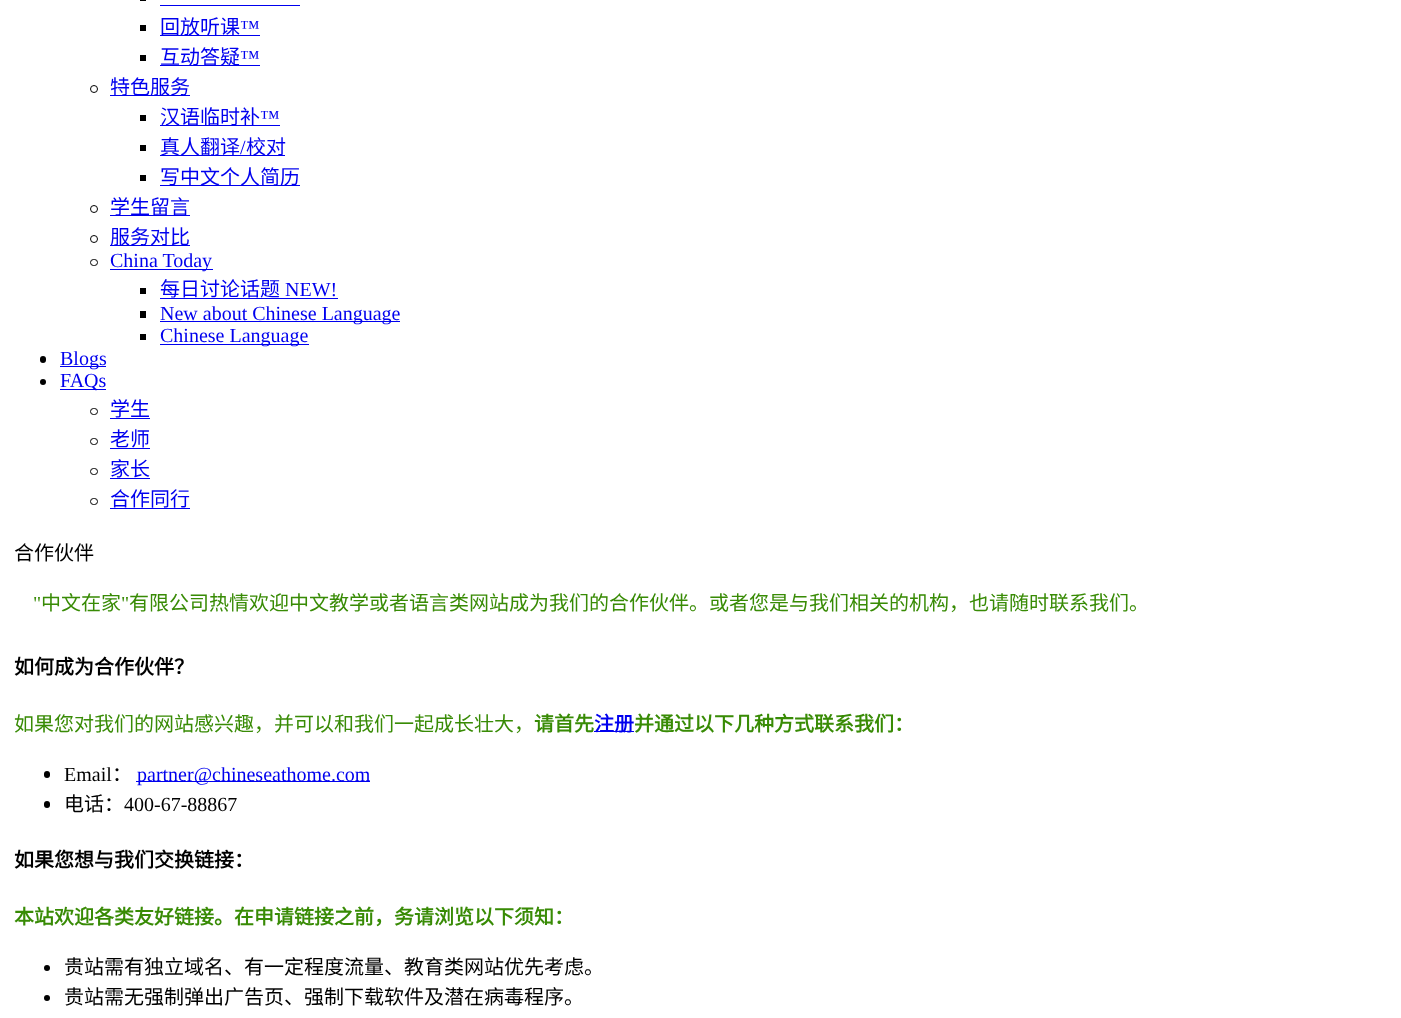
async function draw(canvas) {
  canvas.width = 1401;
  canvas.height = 1018;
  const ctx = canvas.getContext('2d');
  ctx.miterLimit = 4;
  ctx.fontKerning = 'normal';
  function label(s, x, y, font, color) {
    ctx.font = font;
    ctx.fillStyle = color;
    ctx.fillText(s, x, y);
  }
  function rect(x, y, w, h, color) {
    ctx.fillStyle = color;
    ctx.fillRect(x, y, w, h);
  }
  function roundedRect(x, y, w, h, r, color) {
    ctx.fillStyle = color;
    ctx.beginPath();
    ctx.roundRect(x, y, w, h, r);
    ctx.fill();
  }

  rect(0, 0, 1401, 1018, '#fff');
  rect(140, 0, 6, 1, '#000');
  rect(160, 5, 140, 1, '#00e');
  rect(140, 25, 6, 6, '#000');
  rect(160, 35, 100, 1, '#00e');
  label('回放听课', 160, 34, '20px Noto Sans CJK SC', '#00e');
  label('™', 240, 34, '20px Liberation Serif', '#00e');
  rect(140, 55, 6, 6, '#000');
  rect(160, 65, 100, 1, '#00e');
  label('互动答疑', 160, 64, '20px Noto Sans CJK SC', '#00e');
  label('™', 240, 64, '20px Liberation Serif', '#00e');
  ctx.beginPath();
  ctx.arc(94, 89, 3.5, 0, 2 * Math.PI);
  ctx.strokeStyle = '#000';
  ctx.stroke();
  rect(110, 95, 80, 1, '#00e');
  label('特色服务', 110, 94, '20px Noto Sans CJK SC', '#00e');
  rect(140, 115, 6, 6, '#000');
  rect(160, 125, 120, 1, '#00e');
  label('汉语临时补', 160, 124, '20px Noto Sans CJK SC', '#00e');
  label('™', 260, 124, '20px Liberation Serif', '#00e');
  rect(140, 145, 6, 6, '#000');
  rect(160, 155, 125, 1, '#00e');
  label('真人翻译', 160, 154, '20px Noto Sans CJK SC', '#00e');
  label('/', 240, 154, '20px Liberation Serif', '#00e');
  label('校对', 246, 154, '20px Noto Sans CJK SC', '#00e');
  rect(140, 175, 6, 6, '#000');
  rect(160, 185, 140, 1, '#00e');
  label('写中文个人简历', 160, 184, '20px Noto Sans CJK SC', '#00e');
  ctx.beginPath();
  ctx.arc(94, 209, 3.5, 0, 2 * Math.PI);
  ctx.stroke();
  rect(110, 215, 80, 1, '#00e');
  label('学生留言', 110, 214, '20px Noto Sans CJK SC', '#00e');
  ctx.beginPath();
  ctx.arc(94, 239, 3.5, 0, 2 * Math.PI);
  ctx.stroke();
  rect(110, 245, 80, 1, '#00e');
  label('服务对比', 110, 244, '20px Noto Sans CJK SC', '#00e');
  ctx.beginPath();
  ctx.roundRect(90.5, 259.5, 7, 6, 3);
  ctx.stroke();
  rect(110, 269, 103, 1, '#00e');
  label('China Today', 110, 267, '20px Liberation Serif', '#00e');
  rect(140, 288, 6, 6, '#000');
  label('每日讨论话题', 160, 296, '20px Noto Sans CJK SC', '#00e');
  label('NEW!', 285, 296, '20px Liberation Serif', '#00e');
  rect(160, 298, 178, 1, '#00e');
  rect(140, 311, 6, 7, '#000');
  rect(160, 321, 240, 1, '#00e');
  label('New about Chinese Language', 160, 320, '20px Liberation Serif', '#00e');
  rect(140, 334, 6, 6, '#000');
  rect(160, 344, 149, 1, '#00e');
  label('Chinese Language', 160, 342, '20px Liberation Serif', '#00e');
  roundedRect(40, 356, 6, 7, 3, '#000');
  rect(60, 366, 46, 1, '#00e');
  label('Blogs', 60, 365, '20px Liberation Serif', '#00e');
  ctx.fillStyle = '#000';
  ctx.beginPath();
  ctx.arc(43, 382, 3, 0, 2 * Math.PI);
  ctx.fill();
  rect(60, 389, 46, 1, '#00e');
  label('FAQs', 60, 387, '20px Liberation Serif', '#00e');
  ctx.beginPath();
  ctx.roundRect(90.5, 408.5, 7, 6, 3);
  ctx.stroke();
  label('学生', 110, 416, '20px Noto Sans CJK SC', '#00e');
  rect(110, 418, 40, 1, '#00e');
  ctx.beginPath();
  ctx.roundRect(90.5, 438.5, 7, 6, 3);
  ctx.stroke();
  label('老师', 110, 446, '20px Noto Sans CJK SC', '#00e');
  rect(110, 448, 40, 1, '#00e');
  ctx.beginPath();
  ctx.roundRect(90.5, 468.5, 7, 6, 3);
  ctx.stroke();
  label('家长', 110, 476, '20px Noto Sans CJK SC', '#00e');
  rect(110, 478, 40, 1, '#00e');
  ctx.beginPath();
  ctx.roundRect(90.5, 498.5, 7, 6, 3);
  ctx.stroke();
  label('合作同行', 110, 506, '20px Noto Sans CJK SC', '#00e');
  rect(110, 508, 80, 1, '#00e');
  label('合作伙伴', 14, 560, '20px Noto Sans CJK SC', '#000');
  label('"', 33, 610, '20px Liberation Serif', '#388b05');
  label('中文在家', 41, 610, '20px Noto Sans CJK SC', '#388b05');
  label('"', 121, 610, '20px Liberation Serif', '#388b05');
  label('有限公司热情欢迎中文教学或者语言类网站成为我们的合作伙伴。或者您是与我们相关的机构，也请随时联系我们。', 129, 610, '20px Noto Sans CJK SC', '#388b05');
  label('如何成为合作伙伴？', 14, 674, 'bold 20px Noto Sans CJK SC', '#000');
  label('如果您对我们的网站感兴趣，并可以和我们一起成长壮大，', 14, 731, '20px Noto Sans CJK SC', '#388b05');
  label('请首先', 534, 731, 'bold 20px Noto Sans CJK SC', '#388b05');
  rect(594, 731, 40, 1, '#00e');
  label('注册', 594, 731, 'bold 20px Noto Sans CJK SC', '#00e');
  label('并通过以下几种方式联系我们：', 634, 731, 'bold 20px Noto Sans CJK SC', '#388b05');
  roundedRect(44, 771, 6, 7, 3, '#000');
  label('Email', 64, 781, '20px Liberation Serif', '#000');
  label('：', 112, 781, '20px Noto Sans CJK SC', '#000');
  rect(136, 781, 234, 1, '#00e');
  label('partner@chineseathome.com', 137, 781, '20px Liberation Serif', '#00e');
  roundedRect(44, 801, 6, 7, 3, '#000');
  label('电话：', 64, 811, '20px Noto Sans CJK SC', '#000');
  label('400-67-88867', 124, 811, '20px Liberation Serif', '#000');
  label('如果您想与我们交换链接：', 14, 867, 'bold 20px Noto Sans CJK SC', '#000');
  label('本站欢迎各类友好链接。在申请链接之前，务请浏览以下须知：', 14, 924, 'bold 20px Noto Sans CJK SC', '#388b05');
  ctx.fillStyle = '#000';
  ctx.beginPath();
  ctx.arc(47, 968, 3, 0, 2 * Math.PI);
  ctx.fill();
  label('贵站需有独立域名、有一定程度流量、教育类网站优先考虑。', 64, 974, '20px Noto Sans CJK SC', '#000');
  ctx.beginPath();
  ctx.arc(47, 998, 3, 0, 2 * Math.PI);
  ctx.fill();
  label('贵站需无强制弹出广告页、强制下载软件及潜在病毒程序。', 64, 1004, '20px Noto Sans CJK SC', '#000');
}

draw(document.querySelector('canvas'));
